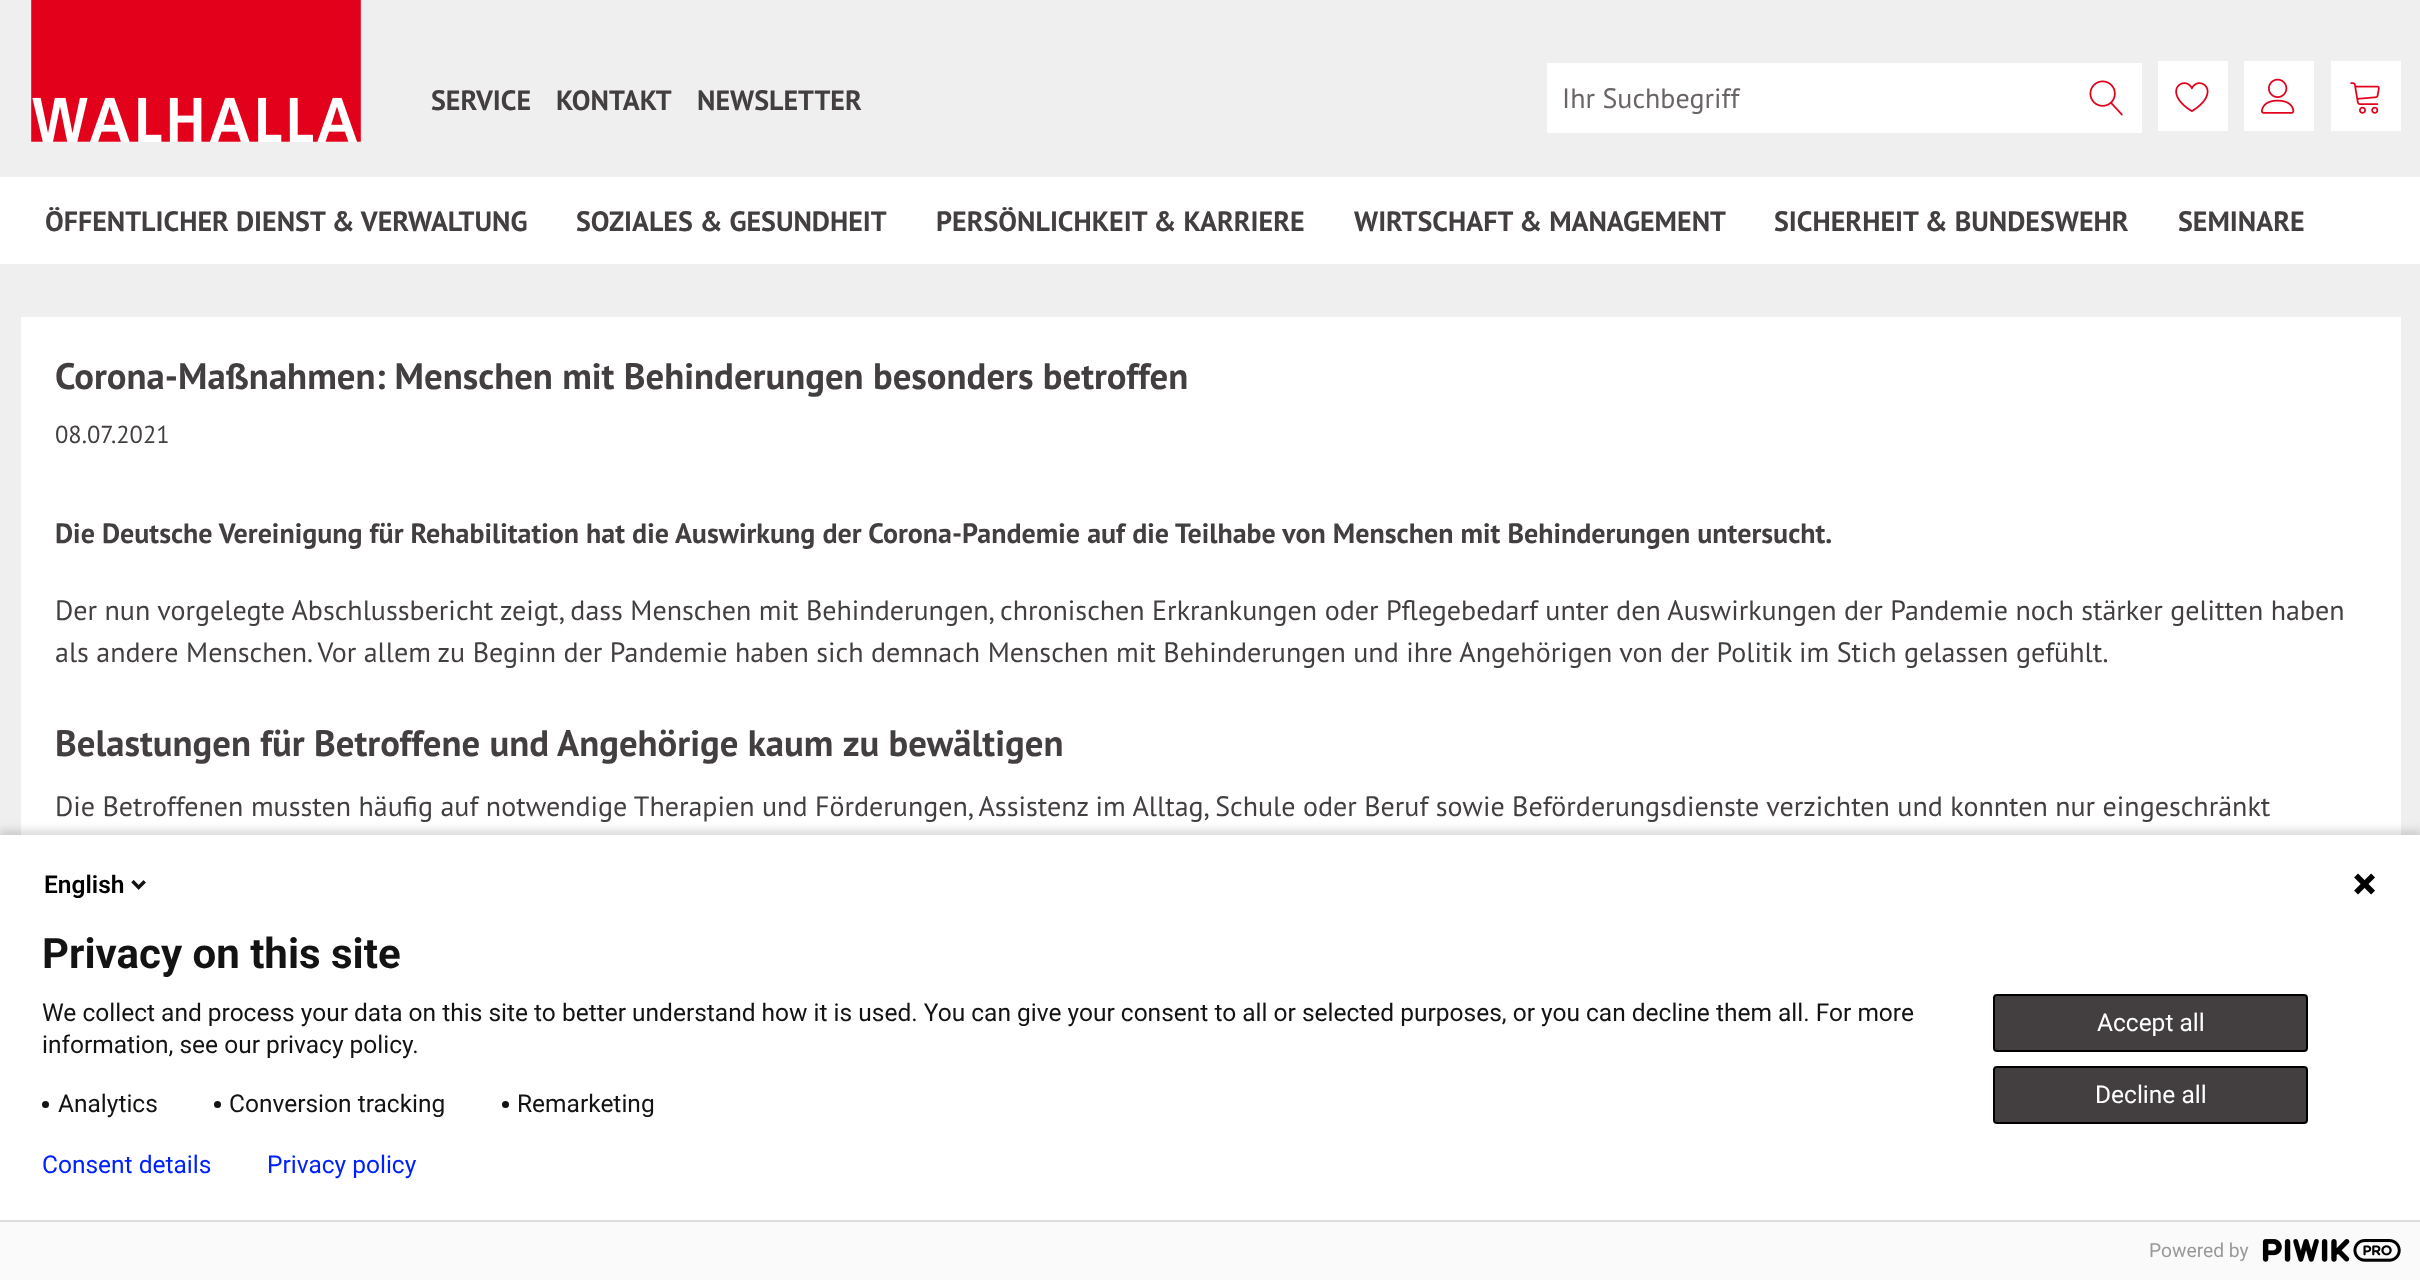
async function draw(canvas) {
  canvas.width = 2420;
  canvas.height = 1280;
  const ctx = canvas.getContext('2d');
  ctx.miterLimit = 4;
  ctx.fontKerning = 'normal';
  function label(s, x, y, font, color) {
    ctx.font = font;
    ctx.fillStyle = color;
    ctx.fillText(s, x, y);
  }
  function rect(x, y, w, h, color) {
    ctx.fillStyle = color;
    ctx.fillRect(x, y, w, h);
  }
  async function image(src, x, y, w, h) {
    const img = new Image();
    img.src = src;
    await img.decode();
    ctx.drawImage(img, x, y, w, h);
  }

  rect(0, 0, 2420, 1280, '#efefef');
  await image('assets/img1.png', 31, 0, 330, 142);
  label('SERVICE', 431, 110, 'bold 28px PT Sans', '#433f40');
  label('KONTAKT', 556, 110, 'bold 28px PT Sans', '#433f40');
  label('NEWSLETTER', 697, 110, 'bold 28px PT Sans', '#433f40');
  rect(1547, 63, 595, 70, '#fff');
  label('Ihr Suchbegriff', 1562, 108, '28px PT Sans', '#6a6466');
  await image('assets/img2.png', 2089, 80, 34, 36);
  rect(2158, 61, 70, 70, '#fff');
  await image('assets/img3.png', 2175, 82, 34, 30);
  rect(2244, 61, 70, 70, '#fff');
  await image('assets/img4.png', 2261, 78, 34, 36);
  rect(2331, 61, 70, 70, '#fff');
  await image('assets/img5.png', 2350, 82, 30, 32);
  rect(0, 177, 2420, 87, '#fff');
  label('ÖFFENTLICHER DIENST & VERWALTUNG', 45, 231, 'bold 28px PT Sans', '#433f40');
  label('SOZIALES & GESUNDHEIT', 576, 231, 'bold 28px PT Sans', '#433f40');
  label('PERSÖNLICHKEIT & KARRIERE', 936, 231, 'bold 28px PT Sans', '#433f40');
  label('WIRTSCHAFT & MANAGEMENT', 1354, 231, 'bold 28px PT Sans', '#433f40');
  label('SICHERHEIT & BUNDESWEHR', 1774, 231, 'bold 28px PT Sans', '#433f40');
  label('SEMINARE', 2178, 231, 'bold 28px PT Sans', '#433f40');
  rect(21, 317, 2380, 518, '#fff');
  label('Corona-Maßnahmen: Menschen mit Behinderungen besonders betroffen', 55, 389, 'bold 36.75px PT Sans', '#433f40');
  label('08.07.2021', 55, 443, '24.5px PT Sans', '#433f40');
  label('Die Deutsche Vereinigung für Rehabilitation hat die Auswirkung der Corona-Pandemie auf die Teilhabe von Menschen mit Behinderungen untersucht.', 55, 543, 'bold 28px PT Sans', '#433f40');
  label('Der nun vorgelegte Abschlussbericht zeigt, dass Menschen mit Behinderungen, chronischen Erkrankungen oder Pflegebedarf unter den Auswirkungen der Pandemie noch stärker gelitten haben', 55, 620, '28px PT Sans', '#433f40');
  label('als andere Menschen. Vor allem zu Beginn der Pandemie haben sich demnach Menschen mit Behinderungen und ihre Angehörigen von der Politik im Stich gelassen gefühlt.', 55, 662, '28px PT Sans', '#433f40');
  label('Belastungen für Betroffene und Angehörige kaum zu bewältigen', 55, 756, 'bold 36.75px PT Sans', '#433f40');
  label('Die Betroffenen mussten häufig auf notwendige Therapien und Förderungen, Assistenz im Alltag, Schule oder Beruf sowie Beförderungsdienste verzichten und konnten nur eingeschränkt', 55, 816, '28px PT Sans', '#433f40');
  ctx.fillStyle = '#00000024';
  ctx.filter = 'blur(4.5px)';
  ctx.beginPath();
  ctx.rect(-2, 830, 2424, 449);
  ctx.fill();
  ctx.filter = 'none';
  rect(0, 835, 2420, 385, '#fff');
  label('English', 44, 893, '600 24.5px Roboto', '#000');
  await image('assets/img6.png', 131, 880, 15, 10);
  await image('assets/img7.png', 2354, 873, 21, 22);
  label('Privacy on this site', 42, 968, 'bold 42px Roboto', '#131313');
  label('We collect and process your data on this site to better understand how it is used. You can give your consent to all or selected purposes, or you can decline them all. For more', 42, 1021, '24.5px Roboto', '#131313');
  label('information, see our privacy policy.', 42, 1053, '24.5px Roboto', '#131313');
  ctx.beginPath();
  ctx.arc(45.5, 1104.5, 3.5, 0, 2 * Math.PI);
  ctx.fill();
  label('Analytics', 58, 1112, '24.5px Roboto', '#131313');
  ctx.beginPath();
  ctx.arc(217.5, 1104.5, 3.5, 0, 2 * Math.PI);
  ctx.fill();
  label('Conversion tracking', 229, 1112, '24.5px Roboto', '#131313');
  ctx.beginPath();
  ctx.arc(505.5, 1104.5, 3.5, 0, 2 * Math.PI);
  ctx.fill();
  label('Remarketing', 517, 1112, '24.5px Roboto', '#131313');
  ctx.fillStyle = '#433f40';
  ctx.beginPath();
  ctx.roundRect(1994, 995, 313, 56, 3);
  ctx.fill();
  ctx.strokeStyle = '#000';
  ctx.lineWidth = 2;
  ctx.stroke();
  label('Accept all', 2097, 1031, '24.5px Roboto', '#fff');
  ctx.fillStyle = '#433f40';
  ctx.beginPath();
  ctx.roundRect(1994, 1067, 313, 56, 3);
  ctx.fill();
  ctx.stroke();
  label('Decline all', 2095, 1103, '24.5px Roboto', '#fff');
  label('Consent details', 42, 1173, '24.5px Roboto', '#0021ff');
  label('Privacy policy', 267, 1173, '24.5px Roboto', '#0021ff');
  rect(0, 1222, 2420, 58, '#fafafa');
  rect(0, 1220, 2420, 2, '#ddd');
  label('Powered by', 2149, 1257, '19.25px Roboto', '#999');
  await image('assets/img8.png', 2262, 1239, 139, 23);
}

draw(document.querySelector('canvas'));
